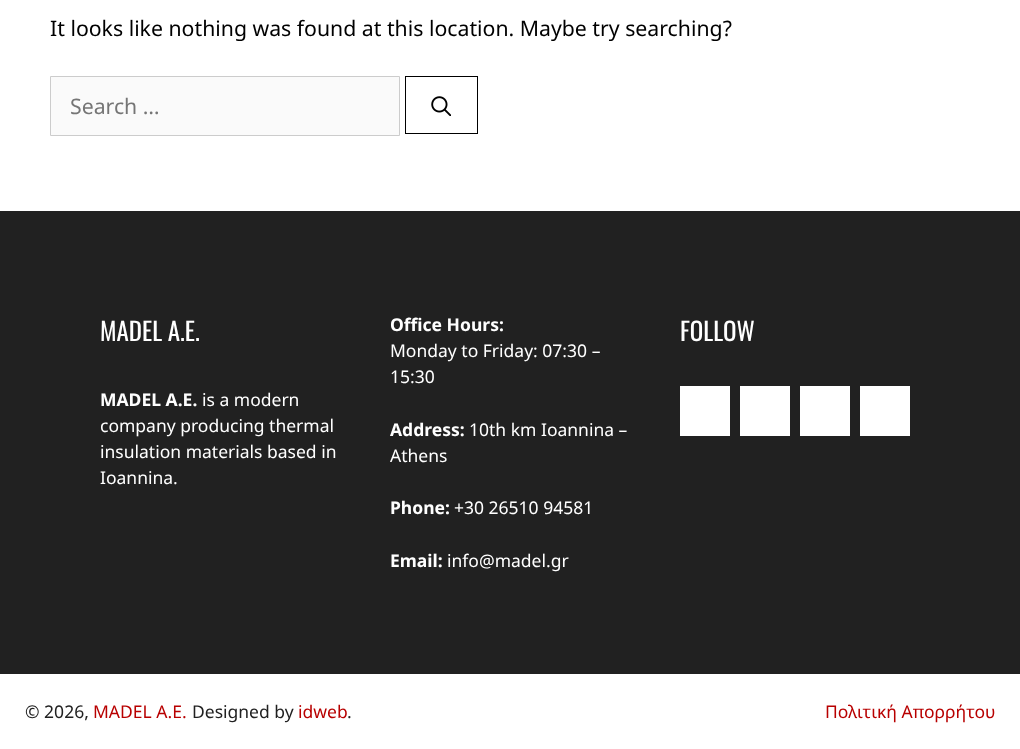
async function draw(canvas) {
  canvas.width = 1020;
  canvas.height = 749;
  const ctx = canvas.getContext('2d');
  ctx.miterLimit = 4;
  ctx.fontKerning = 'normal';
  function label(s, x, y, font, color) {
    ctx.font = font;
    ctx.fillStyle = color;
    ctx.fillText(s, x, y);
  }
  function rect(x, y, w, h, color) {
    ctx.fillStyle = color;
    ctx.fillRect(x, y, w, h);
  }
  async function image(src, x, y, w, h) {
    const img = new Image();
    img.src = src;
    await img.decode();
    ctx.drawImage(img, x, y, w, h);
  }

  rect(0, 0, 1020, 749, '#fff');
  label('It looks like nothing was found at this location. Maybe try searching?', 50, 36, '21.25px Noto Sans', '#000');
  ctx.fillStyle = '#fafafa';
  ctx.beginPath();
  ctx.rect(50.5, 76.5, 349, 59);
  ctx.fill();
  ctx.strokeStyle = '#ccc';
  ctx.stroke();
  label('Search …', 70, 114, '21.25px Noto Sans', '#757575');
  ctx.strokeStyle = '#000';
  ctx.strokeRect(405.5, 76.5, 72, 57);
  await image('assets/img1.png', 431, 96, 20, 20);
  rect(0, 211, 1020, 463, '#212121');
  label('MADEL A.E.', 100, 341, '25px Oswald', '#fff');
  label('MADEL A.E.', 100, 406, 'bold 17.5px Noto Sans', '#fff');
  label('is a modern', 202, 406, '17.5px Noto Sans', '#fff');
  label('company producing thermal', 100, 432, '17.5px Noto Sans', '#fff');
  label('insulation materials based in', 100, 458, '17.5px Noto Sans', '#fff');
  label('Ioannina.', 100, 484, '17.5px Noto Sans', '#fff');
  label('Office Hours:', 390, 331, 'bold 17.5px Noto Sans', '#fff');
  label('Monday to Friday: 07:30 –', 390, 357, '17.5px Noto Sans', '#fff');
  label('15:30', 390, 383, '17.5px Noto Sans', '#fff');
  label('Address:', 390, 436, 'bold 17.5px Noto Sans', '#fff');
  label('10th km Ioannina –', 469, 436, '17.5px Noto Sans', '#fff');
  label('Athens', 390, 462, '17.5px Noto Sans', '#fff');
  label('Phone:', 390, 514, 'bold 17.5px Noto Sans', '#fff');
  label('+30 26510 94581', 454, 514, '17.5px Noto Sans', '#fff');
  label('Email:', 390, 567, 'bold 17.5px Noto Sans', '#fff');
  label('info@madel.gr', 447, 567, '17.5px Noto Sans', '#fff');
  label('FOLLOW', 680, 341, '25px Oswald', '#fff');
  rect(680, 386, 50, 50, '#fff');
  rect(740, 386, 50, 50, '#fff');
  rect(800, 386, 50, 50, '#fff');
  rect(860, 386, 50, 50, '#fff');
  label('© 2026,', 25, 718, '17.5px Noto Sans', '#212121');
  label('MADEL A.E.', 93, 718, '17.5px Noto Sans', '#b80000');
  label('Designed by', 192, 718, '17.5px Noto Sans', '#212121');
  label('idweb', 298, 718, '17.5px Noto Sans', '#b80000');
  label('.', 347, 718, '17.5px Noto Sans', '#212121');
  label('Πολιτική Απορρήτου', 825, 718, '17.5px Noto Sans', '#b80000');
}

draw(document.querySelector('canvas'));
